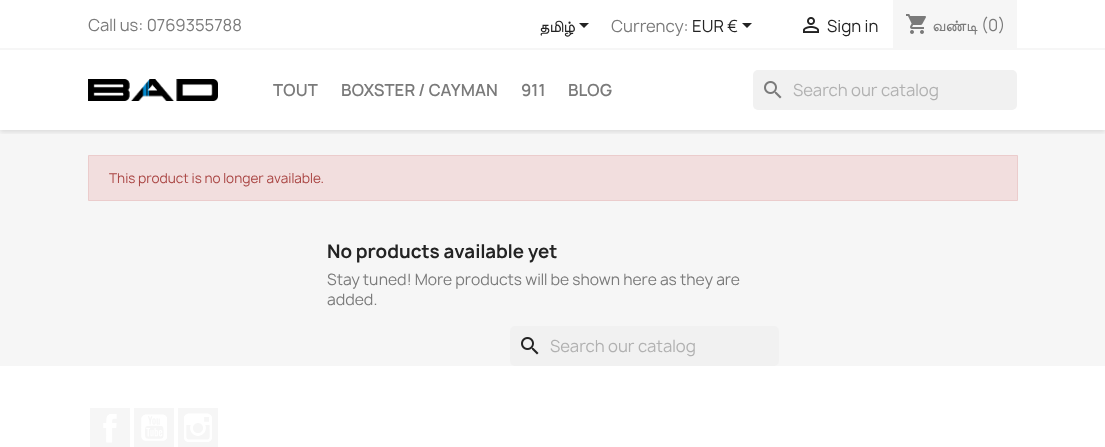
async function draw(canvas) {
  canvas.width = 1105;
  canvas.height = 447;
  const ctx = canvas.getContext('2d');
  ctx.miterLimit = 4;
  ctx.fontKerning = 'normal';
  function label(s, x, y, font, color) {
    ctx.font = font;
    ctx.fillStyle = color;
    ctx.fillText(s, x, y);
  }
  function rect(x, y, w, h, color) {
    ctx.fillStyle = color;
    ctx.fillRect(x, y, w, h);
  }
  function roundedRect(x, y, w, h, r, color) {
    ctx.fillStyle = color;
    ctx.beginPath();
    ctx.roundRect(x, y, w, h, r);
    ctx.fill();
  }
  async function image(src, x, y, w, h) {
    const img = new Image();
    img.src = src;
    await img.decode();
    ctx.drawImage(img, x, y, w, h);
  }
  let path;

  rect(0, 0, 1105, 447, '#fff');
  rect(0, 130, 1105, 236, '#f6f6f6');
  ctx.save();
  ctx.beginPath();
  ctx.rect(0, 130, 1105, 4);
  ctx.clip();
  ctx.fillStyle = '#0000001c';
  ctx.filter = 'blur(2.5px)';
  ctx.beginPath();
  ctx.rect(0, 2, 1105, 130);
  ctx.fill();
  ctx.filter = 'none';
  ctx.restore();
  rect(0, 48, 1105, 2, '#f6f6f6');
  label('Call us: 0769355788', 88, 31, '16px Manrope', '#7a7a7a');
  label('தமிழ்', 539, 32, '16px FreeSans', '#232323');
  path = new Path2D('M579 23H589L584 28Z');
  ctx.fill(path);
  label('Currency:', 611, 32, '16px Manrope', '#7a7a7a');
  label('EUR €', 692, 32, '16px Manrope', '#232323');
  path = new Path2D('M742 23H752L747 28Z');
  ctx.fill(path);
  await image('assets/img1.png', 803, 17, 16, 16);
  label('Sign in', 827, 32, '16px Manrope', '#232323');
  rect(893, 0, 124, 48, '#f6f6f6');
  await image('assets/img2.png', 906, 14, 20, 20);
  label('வண்டி', 932, 31, '16px FreeSans', '#7a7a7a');
  label('(0)', 981, 31, '16px Manrope', '#7a7a7a');
  await image('assets/img3.png', 88, 79, 130, 22);
  label('TOUT', 273, 96, '600 16px Manrope', '#7a7a7a');
  label('BOXSTER / CAYMAN', 341, 96, '600 16px Manrope', '#7a7a7a');
  label('911', 521, 96, '600 16px Manrope', '#7a7a7a');
  label('BLOG', 568, 96, '600 16px Manrope', '#7a7a7a');
  roundedRect(753, 70, 264, 40, 5, '#f1f1f1');
  await image('assets/img4.png', 764, 81, 18, 18);
  label('Search our catalog', 793, 96, '16px Manrope', '#b1b1b1');
  ctx.fillStyle = '#f2dede';
  ctx.beginPath();
  ctx.rect(88.5, 155.5, 929, 45);
  ctx.fill();
  ctx.strokeStyle = '#ebcccc';
  ctx.stroke();
  label('This product is no longer available.', 109, 183, '13px Manrope', '#a94442');
  label('No products available yet', 327, 258, 'bold 18px Manrope', '#232323');
  label('Stay tuned! More products will be shown here as they are', 327, 285, '15px Manrope', '#7a7a7a');
  label('added.', 327, 305, '15px Manrope', '#7a7a7a');
  roundedRect(510, 326, 269, 40, 5, '#f1f1f1');
  await image('assets/img5.png', 521, 337, 18, 18);
  label('Search our catalog', 550, 352, '16px Manrope', '#b1b1b1');
  rect(90, 408, 40, 39, '#f6f6f6');
  await image('assets/img6.png', 103, 414, 14, 29);
  rect(134, 408, 40, 39, '#f6f6f6');
  await image('assets/img7.png', 141, 414, 26, 27);
  rect(178, 408, 40, 39, '#f6f6f6');
  await image('assets/img8.png', 184, 413, 28, 29);
}

draw(document.querySelector('canvas'));
